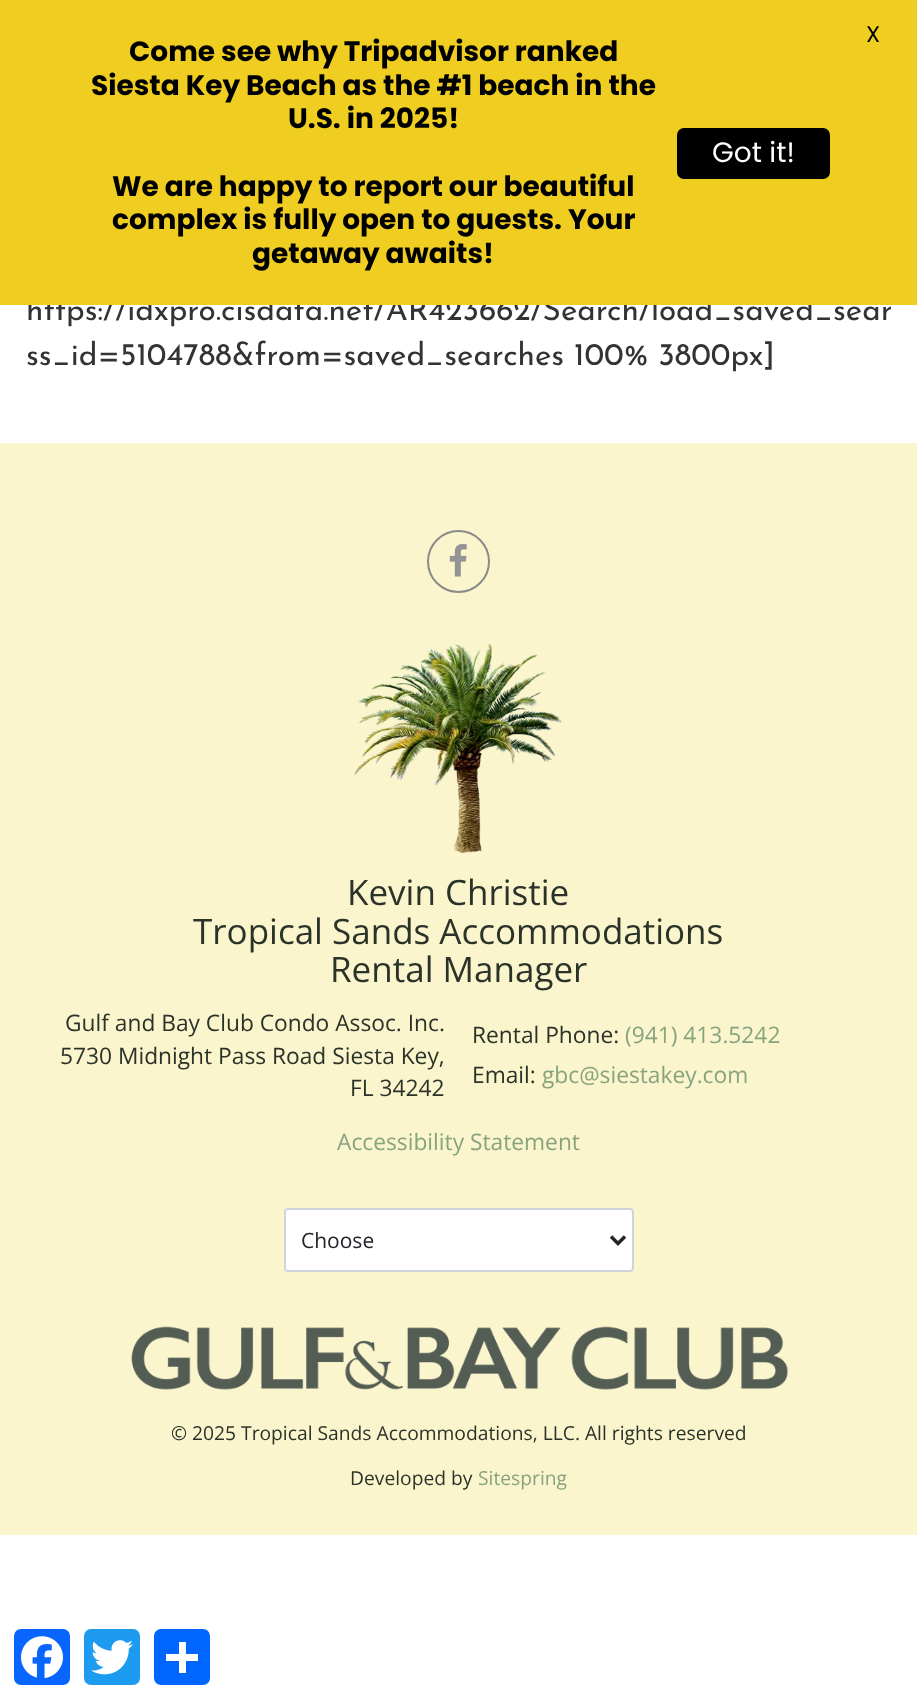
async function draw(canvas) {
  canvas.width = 917;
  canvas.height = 1699;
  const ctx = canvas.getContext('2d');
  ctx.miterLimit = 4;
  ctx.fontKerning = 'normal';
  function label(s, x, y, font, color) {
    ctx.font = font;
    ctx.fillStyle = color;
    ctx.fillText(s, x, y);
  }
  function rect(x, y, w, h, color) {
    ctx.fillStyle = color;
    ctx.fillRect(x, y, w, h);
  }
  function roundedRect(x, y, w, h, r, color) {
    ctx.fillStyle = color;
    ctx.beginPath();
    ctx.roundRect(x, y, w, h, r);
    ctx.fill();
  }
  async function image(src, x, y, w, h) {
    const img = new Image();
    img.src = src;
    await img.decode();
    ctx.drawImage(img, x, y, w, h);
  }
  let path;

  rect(0, 0, 917, 1699, '#fff');
  rect(0, 443, 917, 1092, '#faf5cd');
  ctx.save();
  ctx.beginPath();
  ctx.rect(26, 212, 865, 170);
  ctx.clip();
  label('https://idxpro.cisdata.net/AR423662/Search/load_saved_sear', 26, 320, '31.5px Josefin Sans', '#333');
  ctx.restore();
  rect(0, 0, 917, 305, '#efcd21');
  label('X', 866, 42, '22.75px Poppins', '#000');
  label('Come see why Tripadvisor ranked', 129, 61, 'bold 28px Poppins', '#000');
  label('Siesta Key Beach as the #1 beach in the', 91, 95, 'bold 28px Poppins', '#000');
  label('U.S. in 2025!', 288, 128, 'bold 28px Poppins', '#000');
  label('We are happy to report our beautiful', 112, 196, 'bold 28px Poppins', '#000');
  label('complex is fully open to guests. Your', 112, 229, 'bold 28px Poppins', '#000');
  label('getaway awaits!', 252, 263, 'bold 28px Poppins', '#000');
  roundedRect(677, 128, 153, 51, 7, '#000');
  label('Got it!', 712, 162, '28px Poppins', '#fff');
  ctx.beginPath();
  ctx.arc(458.5, 561.5, 30.5, 0, 2 * Math.PI);
  ctx.strokeStyle = '#8a8a8a';
  ctx.lineWidth = 2;
  ctx.stroke();
  await image('assets/img1.png', 449, 544, 18, 33);
  await image('assets/img2.png', 354, 643, 209, 211);
  label('Kevin Christie', 347, 905, '35px Open Sans', '#2b3329');
  label('Tropical Sands Accommodations', 193, 944, '35px Open Sans', '#2b3329');
  label('Rental Manager', 330, 982, '35px Open Sans', '#2b3329');
  label('Gulf and Bay Club Condo Assoc. Inc.', 65, 1031, '22.75px Open Sans', '#2b3329');
  label('5730 Midnight Pass Road Siesta Key,', 60, 1064, '22.75px Open Sans', '#2b3329');
  label('FL 34242', 350, 1096, '22.75px Open Sans', '#2b3329');
  label('Rental Phone:', 472, 1043, '22.75px Open Sans', '#2b3329');
  label('(941) 413.5242', 625, 1043, '22.75px Open Sans', '#87a37f');
  label('Email:', 472, 1083, '22.75px Open Sans', '#2b3329');
  label('gbc@siestakey.com', 542, 1083, '22.75px Open Sans', '#87a37f');
  label('Accessibility Statement', 337, 1150, '22.75px Open Sans', '#87a37f');
  ctx.fillStyle = '#fff';
  ctx.beginPath();
  ctx.roundRect(285, 1209, 348, 62, 3);
  ctx.fill();
  ctx.strokeStyle = '#ced4da';
  ctx.stroke();
  path = new Path2D('M611 1236.5L618 1243.5L625 1236.5');
  ctx.strokeStyle = '#212529';
  ctx.lineWidth = 3.5;
  ctx.stroke(path);
  label('Choose', 301, 1248, '21px Open Sans', '#212529');
  await image('assets/img3.png', 131, 1326, 657, 64);
  label('© 2025 Tropical Sands Accommodations, LLC. All rights reserved', 171, 1440, '19.25px Open Sans', '#2b3329');
  label('Developed by', 350, 1485, '19.25px Open Sans', '#2b3329');
  label('Sitespring', 478, 1485, '19.25px Open Sans', '#87a37f');
  roundedRect(14, 1629, 56, 56, 7, '#0866ff');
  await image('assets/img4.png', 21, 1636, 42, 43);
  roundedRect(84, 1629, 56, 56, 7, '#1d9bf0');
  await image('assets/img5.png', 91, 1640, 42, 35);
  roundedRect(154, 1629, 56, 56, 7, '#0166ff');
  rect(179, 1642, 7, 31, '#fff');
  rect(166, 1654, 32, 7, '#fff');
  label('ss_id=5104788&from=saved_searches 100% 3800px]', 26, 365, '31.5px Josefin Sans', '#333');
}

draw(document.querySelector('canvas'));
